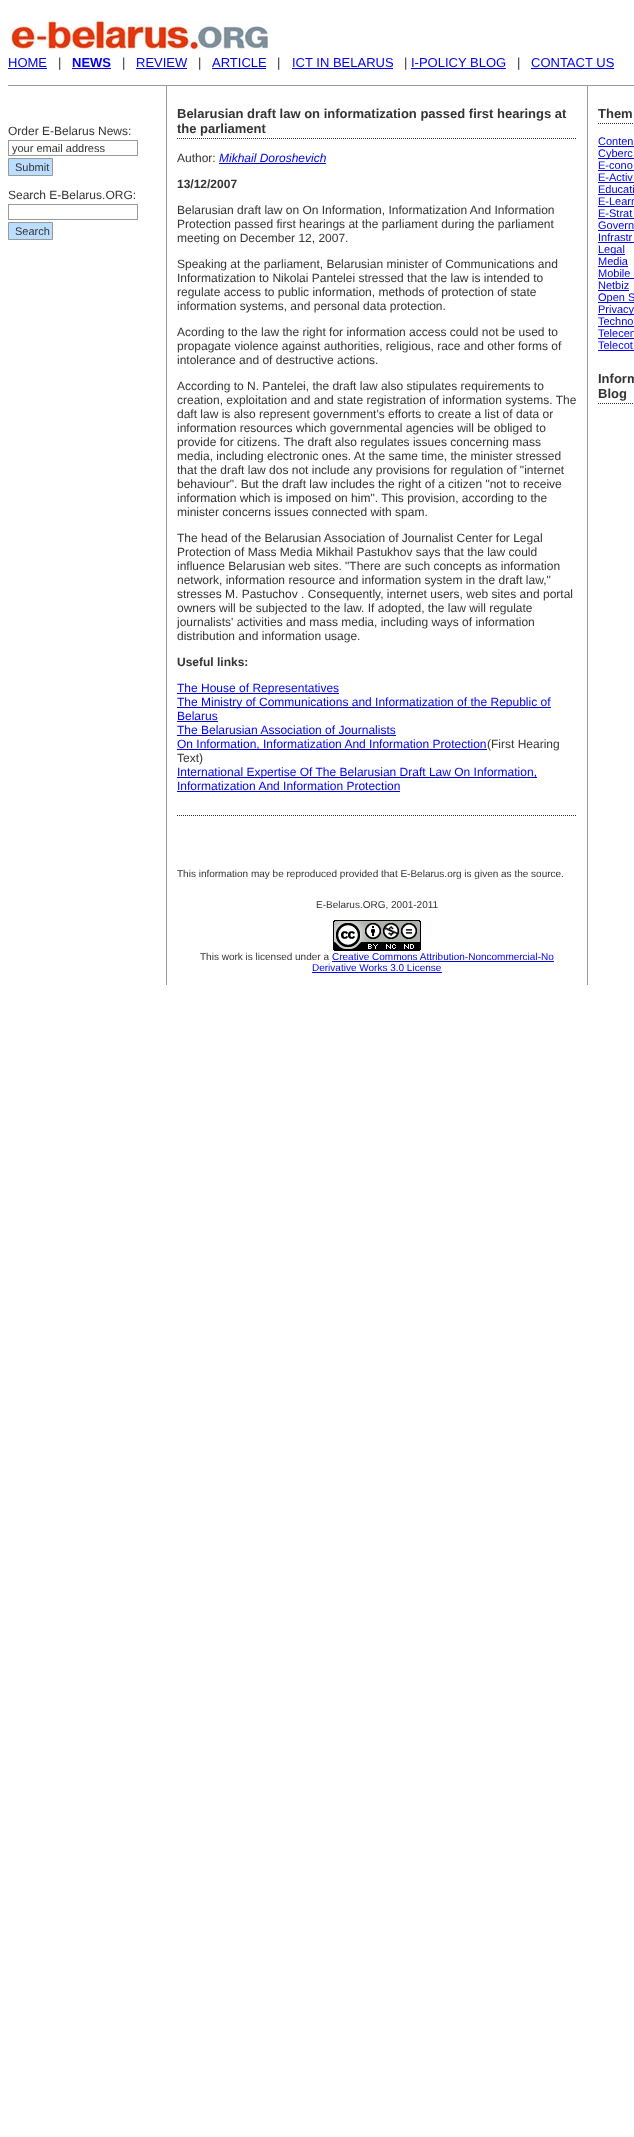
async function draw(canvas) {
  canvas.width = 634;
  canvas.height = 2137;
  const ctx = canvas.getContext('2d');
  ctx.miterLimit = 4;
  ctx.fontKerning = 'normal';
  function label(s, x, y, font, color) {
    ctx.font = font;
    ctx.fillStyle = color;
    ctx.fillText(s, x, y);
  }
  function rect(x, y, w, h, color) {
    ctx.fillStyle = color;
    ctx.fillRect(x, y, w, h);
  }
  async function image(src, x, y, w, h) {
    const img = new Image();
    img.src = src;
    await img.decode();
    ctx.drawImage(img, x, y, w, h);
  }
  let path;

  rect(0, 0, 634, 2137, '#fff');
  await image('assets/img1.png', 8, 20, 263, 30);
  label('HOME', 8, 67, '13px Liberation Sans', '#00e');
  rect(8, 68, 39, 1, '#00e');
  label('|', 58, 67, '13px Liberation Sans', '#333');
  label('NEWS', 72, 67, 'bold 13px Liberation Sans', '#00e');
  rect(72, 68, 39, 1, '#00e');
  label('|', 122, 67, '13px Liberation Sans', '#333');
  label('REVIEW', 136, 67, '13px Liberation Sans', '#00e');
  rect(136, 68, 51, 1, '#00e');
  label('|', 198, 67, '13px Liberation Sans', '#333');
  label('ARTICLE', 212, 67, '13px Liberation Sans', '#00e');
  rect(212, 68, 54, 1, '#00e');
  label('|', 277, 67, '13px Liberation Sans', '#333');
  label('ICT IN BELARUS', 292, 67, '13px Liberation Sans', '#00e');
  rect(292, 68, 101, 1, '#00e');
  label('|', 404, 67, '13px Liberation Sans', '#333');
  label('I-POLICY BLOG', 411, 67, '13px Liberation Sans', '#00e');
  rect(411, 68, 95, 1, '#00e');
  label('|', 517, 67, '13px Liberation Sans', '#333');
  label('CONTACT US', 531, 67, '13px Liberation Sans', '#00e');
  rect(531, 68, 83, 1, '#00e');
  rect(8, 85, 626, 1, '#999');
  label('Order E-Belarus News:', 8, 135, '12px Liberation Sans', '#333');
  ctx.strokeStyle = '#999';
  ctx.strokeRect(8.5, 140.5, 129, 15);
  label('your email address', 12, 152, '11px Liberation Sans', '#333');
  ctx.fillStyle = '#bdf';
  ctx.beginPath();
  ctx.rect(8.5, 158.5, 44, 17);
  ctx.fill();
  ctx.stroke();
  label('Submit', 15, 171, '11px Liberation Sans', '#333');
  label('Search E-Belarus.ORG:', 8, 199, '12px Liberation Sans', '#333');
  ctx.strokeRect(8.5, 204.5, 129, 15);
  ctx.fillStyle = '#bdf';
  ctx.beginPath();
  ctx.rect(8.5, 222.5, 44, 17);
  ctx.fill();
  ctx.stroke();
  label('Search', 15, 235, '11px Liberation Sans', '#333');
  rect(587, 85, 1, 900, '#999');
  rect(166, 85, 1, 900, '#999');
  path = new Path2D('M177 138.5H577');
  ctx.strokeStyle = '#333';
  ctx.setLineDash([1, 1]);
  ctx.stroke(path);
  label('Belarusian draft law on informatization passed first hearings at', 177, 118, 'bold 13px Liberation Sans', '#333');
  label('the parliament', 177, 133, 'bold 13px Liberation Sans', '#333');
  label('Author:', 177, 162, '12px Liberation Sans', '#333');
  label('Mikhail Doroshevich', 219, 162, 'italic 12px Liberation Sans', '#00e');
  rect(219, 163, 107, 1, '#00e');
  label('13/12/2007', 177, 188, 'bold 12px Liberation Sans', '#333');
  label('Belarusian draft law on On Information, Informatization And Information', 177, 214, '12px Liberation Sans', '#333');
  label('Protection passed first hearings at the parliament during the parliament', 177, 228, '12px Liberation Sans', '#333');
  label('meeting on December 12, 2007.', 177, 242, '12px Liberation Sans', '#333');
  label('Speaking at the parliament, Belarusian minister of Communications and', 177, 268, '12px Liberation Sans', '#333');
  label('Informatization to Nikolai Pantelei stressed that the law is intended to', 177, 282, '12px Liberation Sans', '#333');
  label('regulate access to public information, methods of protection of state', 177, 296, '12px Liberation Sans', '#333');
  label('information systems, and personal data protection.', 177, 310, '12px Liberation Sans', '#333');
  label('Acording to the law the right for information access could not be used to', 177, 336, '12px Liberation Sans', '#333');
  label('propagate violence against authorities, religious, race and other forms of', 177, 350, '12px Liberation Sans', '#333');
  label('intolerance and of destructive actions.', 177, 364, '12px Liberation Sans', '#333');
  label('According to N. Pantelei, the draft law also stipulates requirements to', 177, 390, '12px Liberation Sans', '#333');
  label('creation, exploitation and and state registration of information systems. The', 177, 404, '12px Liberation Sans', '#333');
  label('daft law is also represent government\'s efforts to create a list of data or', 177, 418, '12px Liberation Sans', '#333');
  label('information resources which governmental agencies will be obliged to', 177, 432, '12px Liberation Sans', '#333');
  label('provide for citizens. The draft also regulates issues concerning mass', 177, 446, '12px Liberation Sans', '#333');
  label('media, including electronic ones. At the same time, the minister stressed', 177, 460, '12px Liberation Sans', '#333');
  label('that the draft law dos not include any provisions for regulation of "internet', 177, 474, '12px Liberation Sans', '#333');
  label('behaviour". But the draft law includes the right of a citizen "not to receive', 177, 488, '12px Liberation Sans', '#333');
  label('information which is imposed on him". This provision, according to the', 177, 502, '12px Liberation Sans', '#333');
  label('minister concerns issues connected with spam.', 177, 516, '12px Liberation Sans', '#333');
  label('The head of the Belarusian Association of Journalist Center for Legal', 177, 542, '12px Liberation Sans', '#333');
  label('Protection of Mass Media Mikhail Pastukhov says that the law could', 177, 556, '12px Liberation Sans', '#333');
  label('influence Belarusian web sites. "There are such concepts as information', 177, 570, '12px Liberation Sans', '#333');
  label('network, information resource and information system in the draft law,"', 177, 584, '12px Liberation Sans', '#333');
  label('stresses M. Pastuchov . Consequently, internet users, web sites and portal', 177, 598, '12px Liberation Sans', '#333');
  label('owners will be subjected to the law. If adopted, the law will regulate', 177, 612, '12px Liberation Sans', '#333');
  label('journalists\' activities and mass media, including ways of information', 177, 626, '12px Liberation Sans', '#333');
  label('distribution and information usage.', 177, 640, '12px Liberation Sans', '#333');
  label('Useful links:', 177, 666, 'bold 12px Liberation Sans', '#333');
  rect(177, 693, 162, 1, '#00e');
  label('The House of Representatives', 177, 692, '12px Liberation Sans', '#00e');
  rect(177, 707, 374, 1, '#00e');
  label('The Ministry of Communications and Informatization of the Republic of', 177, 706, '12px Liberation Sans', '#00e');
  label('Belarus', 177, 720, '12px Liberation Sans', '#00e');
  rect(177, 721, 41, 1, '#00e');
  label('The Belarusian Association of Journalists', 177, 734, '12px Liberation Sans', '#00e');
  rect(177, 735, 219, 1, '#00e');
  rect(177, 749, 310, 1, '#00e');
  label('On Information, Informatization And Information Protection', 177, 748, '12px Liberation Sans', '#00e');
  label('(First Hearing', 487, 748, '12px Liberation Sans', '#333');
  label('Text)', 177, 762, '12px Liberation Sans', '#333');
  rect(177, 777, 360, 1, '#00e');
  label('International Expertise Of The Belarusian Draft Law On Information,', 177, 776, '12px Liberation Sans', '#00e');
  label('Informatization And Information Protection', 177, 790, '12px Liberation Sans', '#00e');
  rect(177, 791, 223, 1, '#00e');
  path = new Path2D('M177 815.5H577');
  ctx.stroke(path);
  label('This information may be reproduced provided that E-Belarus.org is given as the source.', 177, 877, '10px Liberation Sans', '#333');
  label('E-Belarus.ORG, 2001-2011', 316, 908, '10px Liberation Sans', '#333');
  await image('assets/img2.png', 333, 920, 88, 31);
  label('This work is licensed under a', 200, 960, '10px Liberation Sans', '#333');
  label('Creative Commons Attribution-Noncommercial-No', 332, 960, '10px Liberation Sans', '#00e');
  rect(332, 961, 222, 1, '#00e');
  label('Derivative Works 3.0 License', 312, 971, '10px Liberation Sans', '#00e');
  rect(312, 972, 130, 1, '#00e');
  path = new Path2D('M598 123.5H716');
  ctx.stroke(path);
  label('Them', 598, 118, 'bold 13px Liberation Sans', '#333');
  label('Conten', 598, 145, '11px Liberation Sans', '#00e');
  rect(598, 146, 36, 1, '#00e');
  rect(598, 158, 36, 1, '#00e');
  label('Cyberc', 598, 157, '11px Liberation Sans', '#00e');
  label('E-cono', 598, 169, '11px Liberation Sans', '#00e');
  rect(598, 170, 36, 1, '#00e');
  label('E-Activ', 598, 181, '11px Liberation Sans', '#00e');
  rect(598, 182, 36, 1, '#00e');
  label('Educati', 598, 193, '11px Liberation Sans', '#00e');
  rect(598, 194, 36, 1, '#00e');
  label('E-Learn', 598, 205, '11px Liberation Sans', '#00e');
  rect(598, 206, 36, 1, '#00e');
  label('E-Strat', 598, 217, '11px Liberation Sans', '#00e');
  rect(598, 218, 36, 1, '#00e');
  label('Govern', 598, 229, '11px Liberation Sans', '#00e');
  rect(598, 230, 36, 1, '#00e');
  label('Infrastr', 598, 241, '11px Liberation Sans', '#00e');
  rect(598, 242, 36, 1, '#00e');
  rect(598, 254, 27, 1, '#00e');
  label('Legal', 598, 253, '11px Liberation Sans', '#00e');
  label('Media', 598, 265, '11px Liberation Sans', '#00e');
  rect(598, 266, 30, 1, '#00e');
  label('Mobile', 598, 277, '11px Liberation Sans', '#00e');
  rect(598, 278, 36, 1, '#00e');
  label('Netbiz', 598, 289, '11px Liberation Sans', '#00e');
  rect(598, 290, 31, 1, '#00e');
  rect(598, 302, 36, 1, '#00e');
  label('Open S', 598, 301, '11px Liberation Sans', '#00e');
  rect(598, 314, 36, 1, '#00e');
  label('Privacy', 598, 313, '11px Liberation Sans', '#00e');
  label('Techno', 598, 325, '11px Liberation Sans', '#00e');
  rect(598, 326, 36, 1, '#00e');
  label('Telecen', 598, 337, '11px Liberation Sans', '#00e');
  rect(598, 338, 36, 1, '#00e');
  label('Telecot', 598, 349, '11px Liberation Sans', '#00e');
  rect(598, 350, 36, 1, '#00e');
  path = new Path2D('M598 403.5H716');
  ctx.stroke(path);
  label('Inform', 598, 383, 'bold 13px Liberation Sans', '#333');
  label('Blog', 598, 398, 'bold 13px Liberation Sans', '#333');
}

draw(document.querySelector('canvas'));
